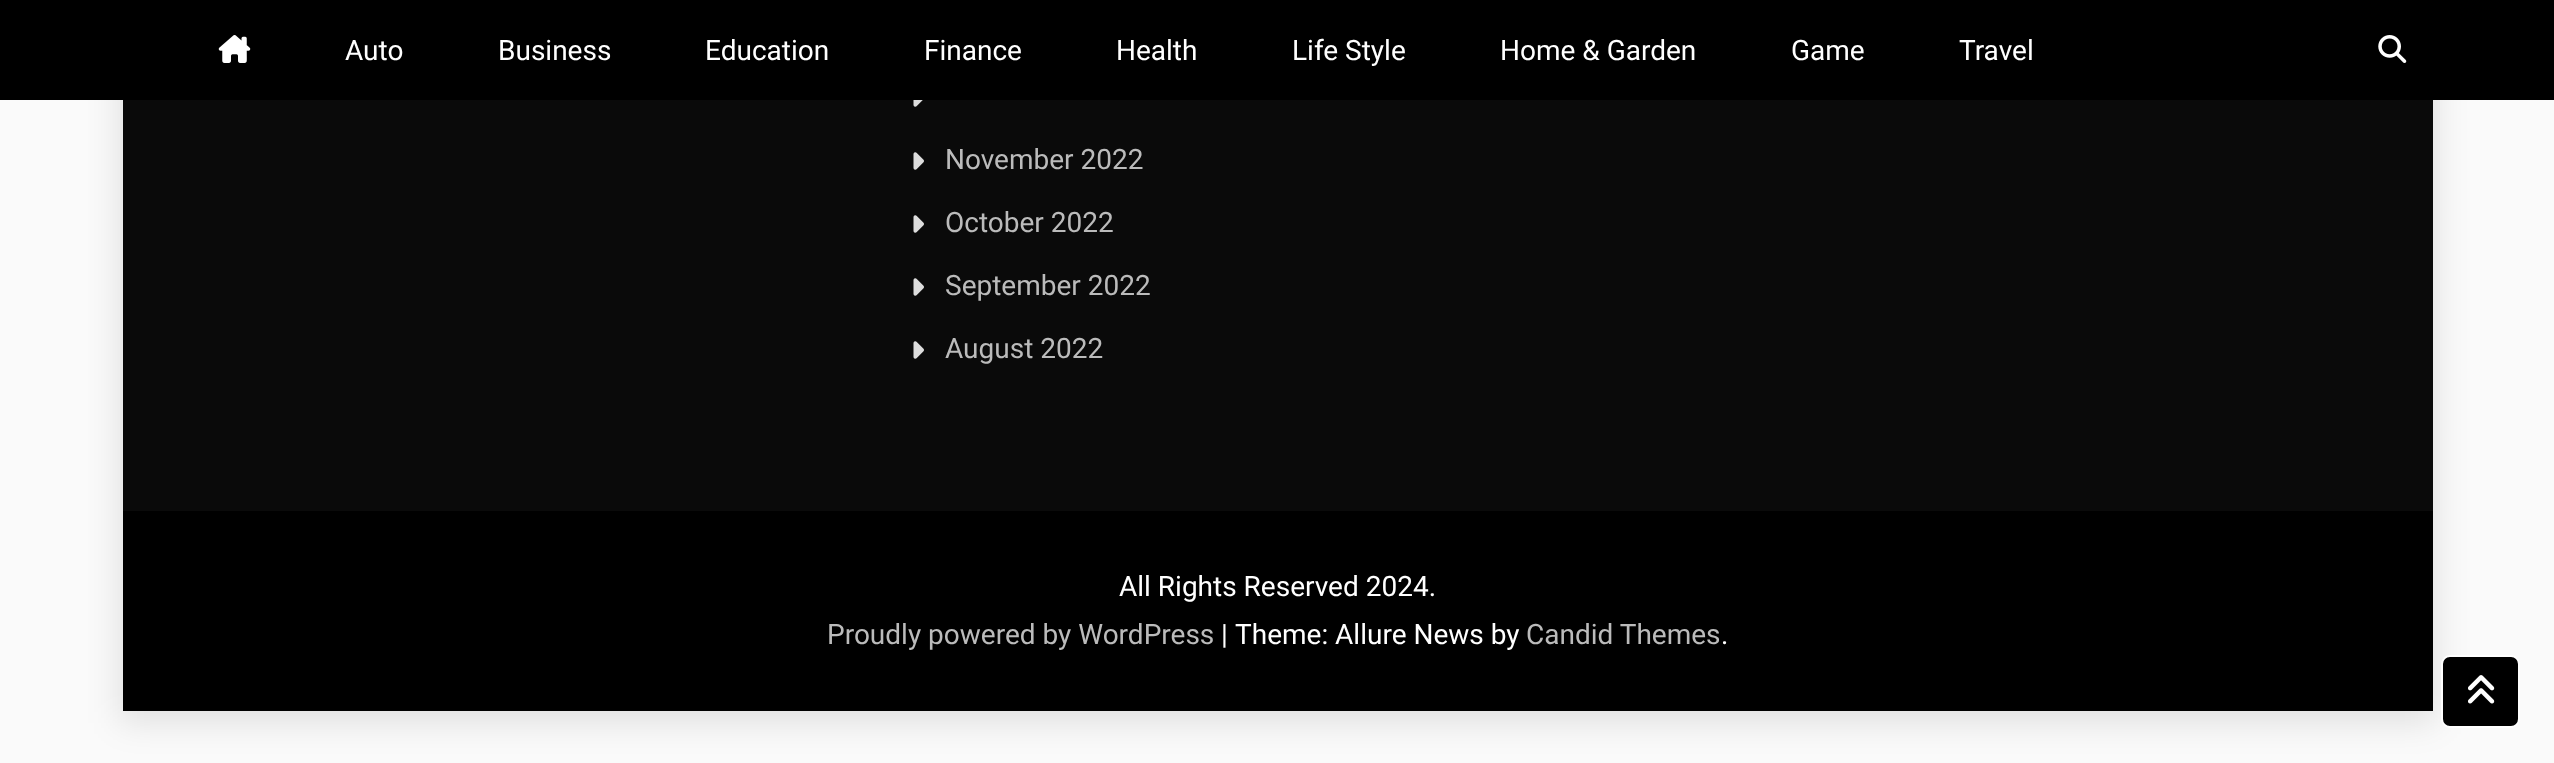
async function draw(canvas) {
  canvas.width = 2554;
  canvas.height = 763;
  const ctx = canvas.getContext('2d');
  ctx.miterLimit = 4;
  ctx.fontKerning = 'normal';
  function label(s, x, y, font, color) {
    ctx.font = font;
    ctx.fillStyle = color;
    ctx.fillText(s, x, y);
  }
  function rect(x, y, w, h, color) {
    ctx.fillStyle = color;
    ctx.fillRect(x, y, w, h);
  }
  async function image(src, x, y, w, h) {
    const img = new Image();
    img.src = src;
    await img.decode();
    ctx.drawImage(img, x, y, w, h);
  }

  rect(0, 0, 2554, 763, '#fafafa');
  ctx.fillStyle = '#0000001a';
  ctx.filter = 'blur(16.5px)';
  ctx.beginPath();
  ctx.rect(119, -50, 2317, 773);
  ctx.fill();
  ctx.filter = 'none';
  rect(0, 0, 2554, 100, '#000');
  await image('assets/img1.png', 218, 35, 33, 28);
  label('Auto', 345, 60, '28px Roboto', '#fff');
  label('Business', 498, 60, '28px Roboto', '#fff');
  label('Education', 705, 60, '28px Roboto', '#fff');
  label('Finance', 924, 60, '28px Roboto', '#fff');
  label('Health', 1116, 60, '28px Roboto', '#fff');
  label('Life Style', 1292, 60, '28px Roboto', '#fff');
  label('Home & Garden', 1500, 60, '28px Roboto', '#fff');
  label('Game', 1791, 60, '28px Roboto', '#fff');
  label('Travel', 1959, 60, '28px Roboto', '#fff');
  await image('assets/img2.png', 2378, 35, 29, 28);
  rect(123, 100, 2310, 411, '#0a0a0a');
  await image('assets/img3.png', 913, 100, 10, 7);
  await image('assets/img4.png', 913, 152, 11, 18);
  label('November 2022', 945, 169, '28px Roboto', '#bbb');
  await image('assets/img4.png', 913, 215, 11, 18);
  label('October 2022', 945, 232, '28px Roboto', '#bbb');
  await image('assets/img4.png', 913, 278, 11, 18);
  label('September 2022', 945, 295, '28px Roboto', '#bbb');
  await image('assets/img4.png', 913, 341, 11, 18);
  label('August 2022', 945, 358, '28px Roboto', '#bbb');
  rect(123, 511, 2310, 200, '#000');
  label('All Rights Reserved 2024.', 1119, 596, '28px Roboto', '#fff');
  label('Proudly powered by WordPress', 827, 644, '28px Roboto', '#bbb');
  label('|', 1221, 644, '28px Roboto', '#fff');
  label('Theme: Allure News by', 1235, 644, '28px Roboto', '#fff');
  label('Candid Themes', 1526, 644, '28px Roboto', '#bbb');
  label('.', 1721, 644, '28px Roboto', '#fff');
  ctx.fillStyle = '#000';
  ctx.beginPath();
  ctx.roundRect(2442, 656, 77, 71, 8);
  ctx.fill();
  ctx.strokeStyle = '#fff';
  ctx.lineWidth = 2;
  ctx.stroke();
  await image('assets/img5.png', 2468, 675, 27, 29);
}

draw(document.querySelector('canvas'));
